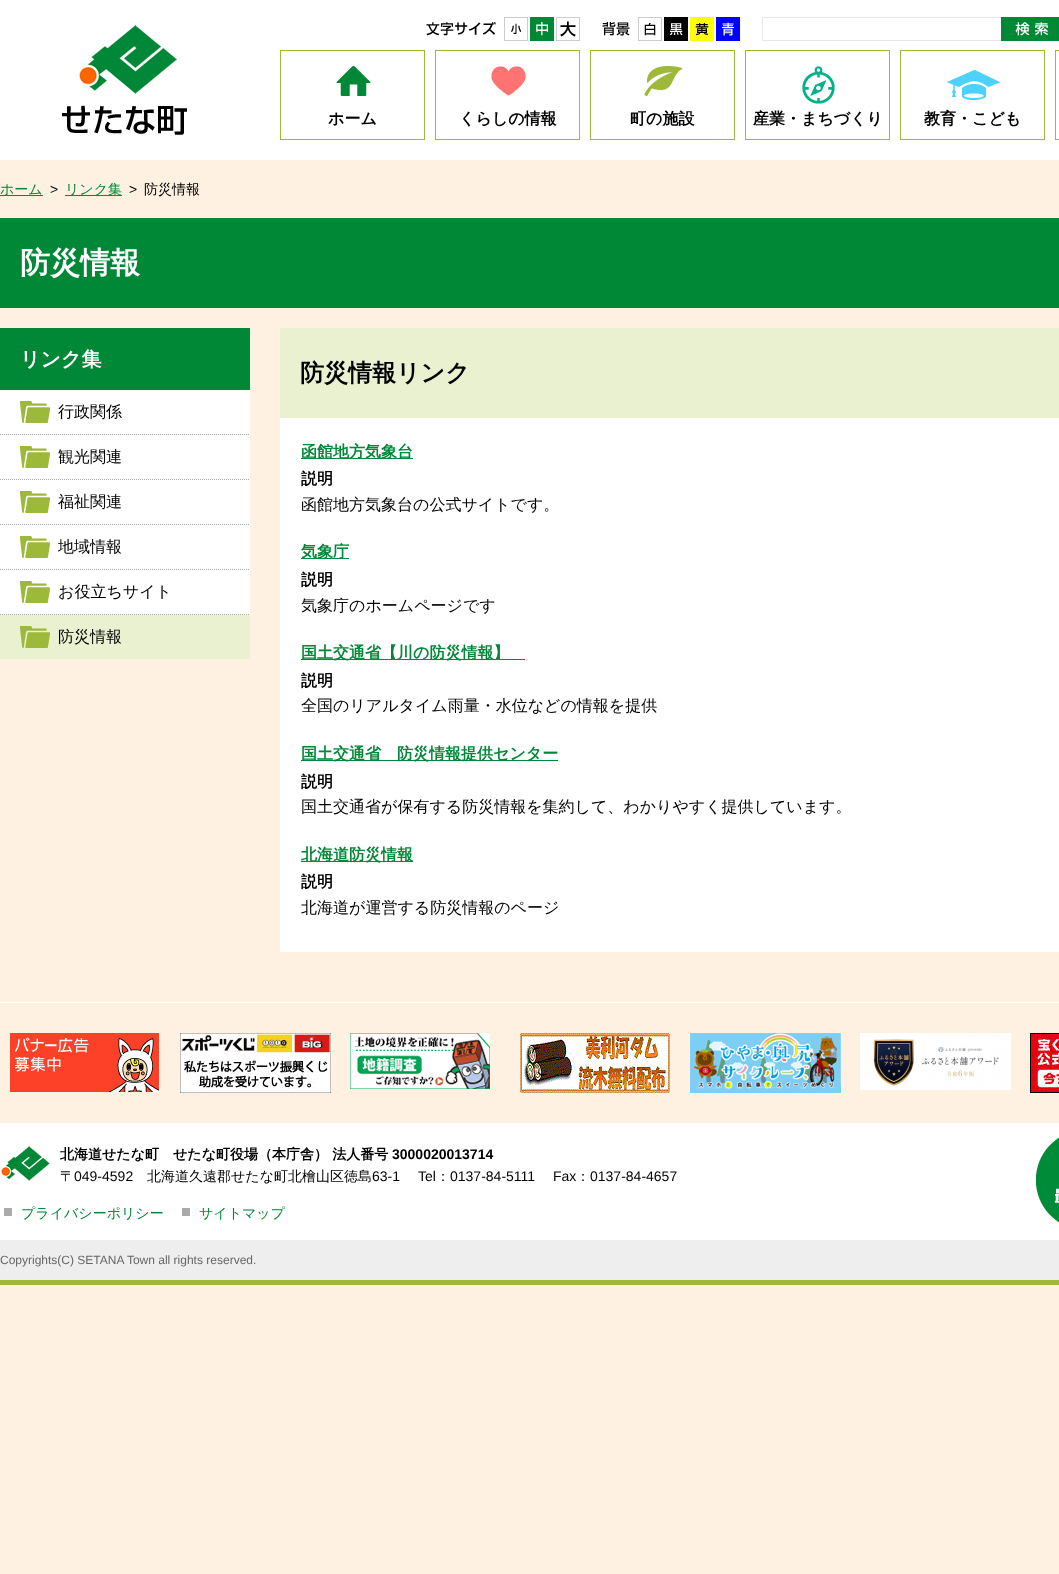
async function draw(canvas) {
  canvas.width = 1059;
  canvas.height = 1574;
  const ctx = canvas.getContext('2d');
  ctx.miterLimit = 4;
  ctx.fontKerning = 'normal';
  function label(s, x, y, font, color) {
    ctx.font = font;
    ctx.fillStyle = color;
    ctx.fillText(s, x, y);
  }
  function rect(x, y, w, h, color) {
    ctx.fillStyle = color;
    ctx.fillRect(x, y, w, h);
  }
  async function image(src, x, y, w, h) {
    const img = new Image();
    img.src = src;
    await img.decode();
    ctx.drawImage(img, x, y, w, h);
  }
  let path;

  rect(0, 0, 1059, 1574, '#fff1e1');
  rect(0, 0, 1059, 160, '#fff');
  await image('assets/img1.png', 62, 25, 125, 110);
  await image('assets/img2.png', 426, 22, 70, 14);
  await image('assets/img3.png', 504, 17, 24, 24);
  await image('assets/img4.png', 530, 17, 24, 24);
  await image('assets/img5.png', 556, 17, 24, 24);
  await image('assets/img6.png', 602, 22, 28, 14);
  await image('assets/img7.png', 638, 17, 24, 24);
  await image('assets/img8.png', 664, 17, 24, 24);
  await image('assets/img9.png', 690, 17, 24, 24);
  await image('assets/img10.png', 716, 17, 24, 24);
  rect(762, 17, 239, 1, '#e7e7e7');
  rect(762, 40, 239, 1, '#e7e7e7');
  rect(762, 17, 1, 24, '#e7e7e7');
  await image('assets/img11.png', 1001, 17, 58, 24);
  await image('assets/img12.png', 336, 66, 35, 30);
  ctx.strokeStyle = '#9cb939';
  ctx.strokeRect(280.5, 50.5, 144, 89);
  label('ホーム', 328, 124, 'bold 16px WenQuanYi Zen Hei', '#000');
  await image('assets/img13.png', 491, 66, 35, 30);
  ctx.strokeRect(435.5, 50.5, 144, 89);
  label('くらしの情報', 459, 124, 'bold 16px WenQuanYi Zen Hei', '#000');
  await image('assets/img14.png', 644, 66, 39, 30);
  ctx.strokeRect(590.5, 50.5, 144, 89);
  label('町の施設', 630, 124, 'bold 16px WenQuanYi Zen Hei', '#000');
  await image('assets/img15.png', 802, 66, 33, 38);
  ctx.strokeRect(745.5, 50.5, 144, 89);
  label('産業・まちづくり', 753, 124, 'bold 16px WenQuanYi Zen Hei', '#000');
  await image('assets/img16.png', 947, 70, 53, 30);
  ctx.strokeRect(900.5, 50.5, 144, 89);
  label('教育・こども', 924, 124, 'bold 16px WenQuanYi Zen Hei', '#000');
  ctx.strokeRect(1055.5, 50.5, 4, 89);
  rect(0, 195, 43, 1, '#008737');
  label('ホーム', 0, 194, '500 14px WenQuanYi Zen Hei', '#008737');
  label('>', 50, 194, '14px Liberation Sans', '#000');
  rect(65, 195, 57, 1, '#008737');
  label('リンク集', 65, 194, '500 14px WenQuanYi Zen Hei', '#008737');
  label('>', 129, 194, '14px Liberation Sans', '#000');
  label('防災情報', 144, 194, '500 14px WenQuanYi Zen Hei', '#000');
  rect(0, 218, 1059, 90, '#008837');
  label('防災情報', 20, 273, 'bold 30px WenQuanYi Zen Hei', '#fff');
  rect(0, 390, 250, 225, '#fff');
  rect(0, 328, 250, 62, '#008837');
  label('リンク集', 20, 366, 'bold 20px WenQuanYi Zen Hei', '#fff');
  await image('assets/img17.png', 20, 401, 30, 22);
  label('行政関係', 58, 417, '500 16px WenQuanYi Zen Hei', '#000');
  path = new Path2D('M0 434.5H250');
  ctx.strokeStyle = '#aaa';
  ctx.setLineDash([1, 1]);
  ctx.stroke(path);
  await image('assets/img17.png', 20, 446, 30, 22);
  label('観光関連', 58, 462, '500 16px WenQuanYi Zen Hei', '#000');
  path = new Path2D('M0 479.5H250');
  ctx.stroke(path);
  await image('assets/img17.png', 20, 491, 30, 22);
  label('福祉関連', 58, 507, '500 16px WenQuanYi Zen Hei', '#000');
  path = new Path2D('M0 524.5H250');
  ctx.stroke(path);
  await image('assets/img17.png', 20, 536, 30, 22);
  label('地域情報', 58, 552, '500 16px WenQuanYi Zen Hei', '#000');
  path = new Path2D('M0 569.5H250');
  ctx.stroke(path);
  await image('assets/img17.png', 20, 581, 30, 22);
  label('お役立ちサイト', 58, 597, '500 16px WenQuanYi Zen Hei', '#000');
  path = new Path2D('M0 614.5H250');
  ctx.stroke(path);
  rect(0, 615, 250, 44, '#eaf1d1');
  await image('assets/img18.png', 20, 626, 30, 22);
  label('防災情報', 58, 642, '500 16px WenQuanYi Zen Hei', '#000');
  rect(280, 418, 779, 534, '#fff');
  rect(280, 328, 779, 90, '#eaf1d1');
  label('防災情報リンク', 300, 381, 'bold 24px WenQuanYi Zen Hei', '#000');
  rect(301, 458, 112, 1, '#008737');
  label('函館地方気象台', 301, 457, 'bold 16px WenQuanYi Zen Hei', '#008737');
  label('説明', 301, 484, 'bold 16px WenQuanYi Zen Hei', '#000');
  label('函館地方気象台の公式サイトです。', 301, 510, '500 16px WenQuanYi Zen Hei', '#000');
  rect(301, 558, 48, 1, '#008737');
  label('気象庁', 301, 557, 'bold 16px WenQuanYi Zen Hei', '#008737');
  label('説明', 301, 585, 'bold 16px WenQuanYi Zen Hei', '#000');
  label('気象庁のホームページです', 301, 611, '500 16px WenQuanYi Zen Hei', '#000');
  rect(301, 659, 224, 1, '#008737');
  label('国土交通省【川の防災情報】', 301, 658, 'bold 16px WenQuanYi Zen Hei', '#008737');
  label('説明', 301, 686, 'bold 16px WenQuanYi Zen Hei', '#000');
  label('全国のリアルタイム雨量・水位などの情報を提供', 301, 711, '500 16px WenQuanYi Zen Hei', '#000');
  rect(301, 760, 257, 1, '#008737');
  label('国土交通省　防災情報提供センター', 301, 759, 'bold 16px WenQuanYi Zen Hei', '#008737');
  label('説明', 301, 787, 'bold 16px WenQuanYi Zen Hei', '#000');
  label('国土交通省が保有する防災情報を集約して、わかりやすく提供しています。', 301, 812, '500 16px WenQuanYi Zen Hei', '#000');
  rect(301, 861, 112, 1, '#008737');
  label('北海道防災情報', 301, 860, 'bold 16px WenQuanYi Zen Hei', '#008737');
  label('説明', 301, 887, 'bold 16px WenQuanYi Zen Hei', '#000');
  label('北海道が運営する防災情報のページ', 301, 913, '500 16px WenQuanYi Zen Hei', '#000');
  rect(0, 1002, 1059, 1, '#fff');
  await image('assets/img19.png', 10, 1033, 149, 59);
  await image('assets/img20.png', 180, 1033, 151, 60);
  await image('assets/img21.png', 350, 1033, 140, 56);
  await image('assets/img22.png', 520, 1033, 150, 60);
  await image('assets/img23.png', 690, 1033, 151, 60);
  await image('assets/img24.png', 860, 1033, 151, 57);
  await image('assets/img25.png', 1030, 1033, 29, 60);
  rect(0, 1123, 1059, 117, '#fff');
  await image('assets/img26.png', 1, 1146, 49, 35);
  label('北海道せたな町　せたな町役場（本庁舎） 法人番号', 60, 1159, 'bold 14px WenQuanYi Zen Hei', '#000');
  label('3000020013714', 392, 1159, 'bold 14px Liberation Sans', '#000');
  label('〒', 60, 1181, '500 14px WenQuanYi Zen Hei', '#000');
  label('049-4592', 74, 1181, '14px Liberation Sans', '#000');
  label('北海道久遠郡せたな町北檜山区徳島', 147, 1181, '500 14px WenQuanYi Zen Hei', '#000');
  label('63-1', 372, 1181, '14px Liberation Sans', '#000');
  label('Tel', 418, 1181, '14px Liberation Sans', '#000');
  label('：', 436, 1181, '500 14px WenQuanYi Zen Hei', '#000');
  label('0137-84-5111', 450, 1181, '14px Liberation Sans', '#000');
  label('Fax', 553, 1181, '14px Liberation Sans', '#000');
  label('：', 576, 1181, '500 14px WenQuanYi Zen Hei', '#000');
  label('0137-84-4657', 590, 1181, '14px Liberation Sans', '#000');
  rect(4, 1208, 8, 8, '#aaa');
  label('プライバシーポリシー', 21, 1218, '500 14px WenQuanYi Zen Hei', '#008737');
  rect(182, 1208, 8, 8, '#aaa');
  label('サイトマップ', 199, 1218, '500 14px WenQuanYi Zen Hei', '#008737');
  rect(0, 1240, 1059, 40, '#eee');
  rect(0, 1280, 1059, 5, '#9cb939');
  await image('assets/img27.png', 1036, 1137, 23, 86);
  label('Copyrights(C) SETANA Town all rights reserved.', 0, 1264, '12px Liberation Sans', '#666');
}

draw(document.querySelector('canvas'));
